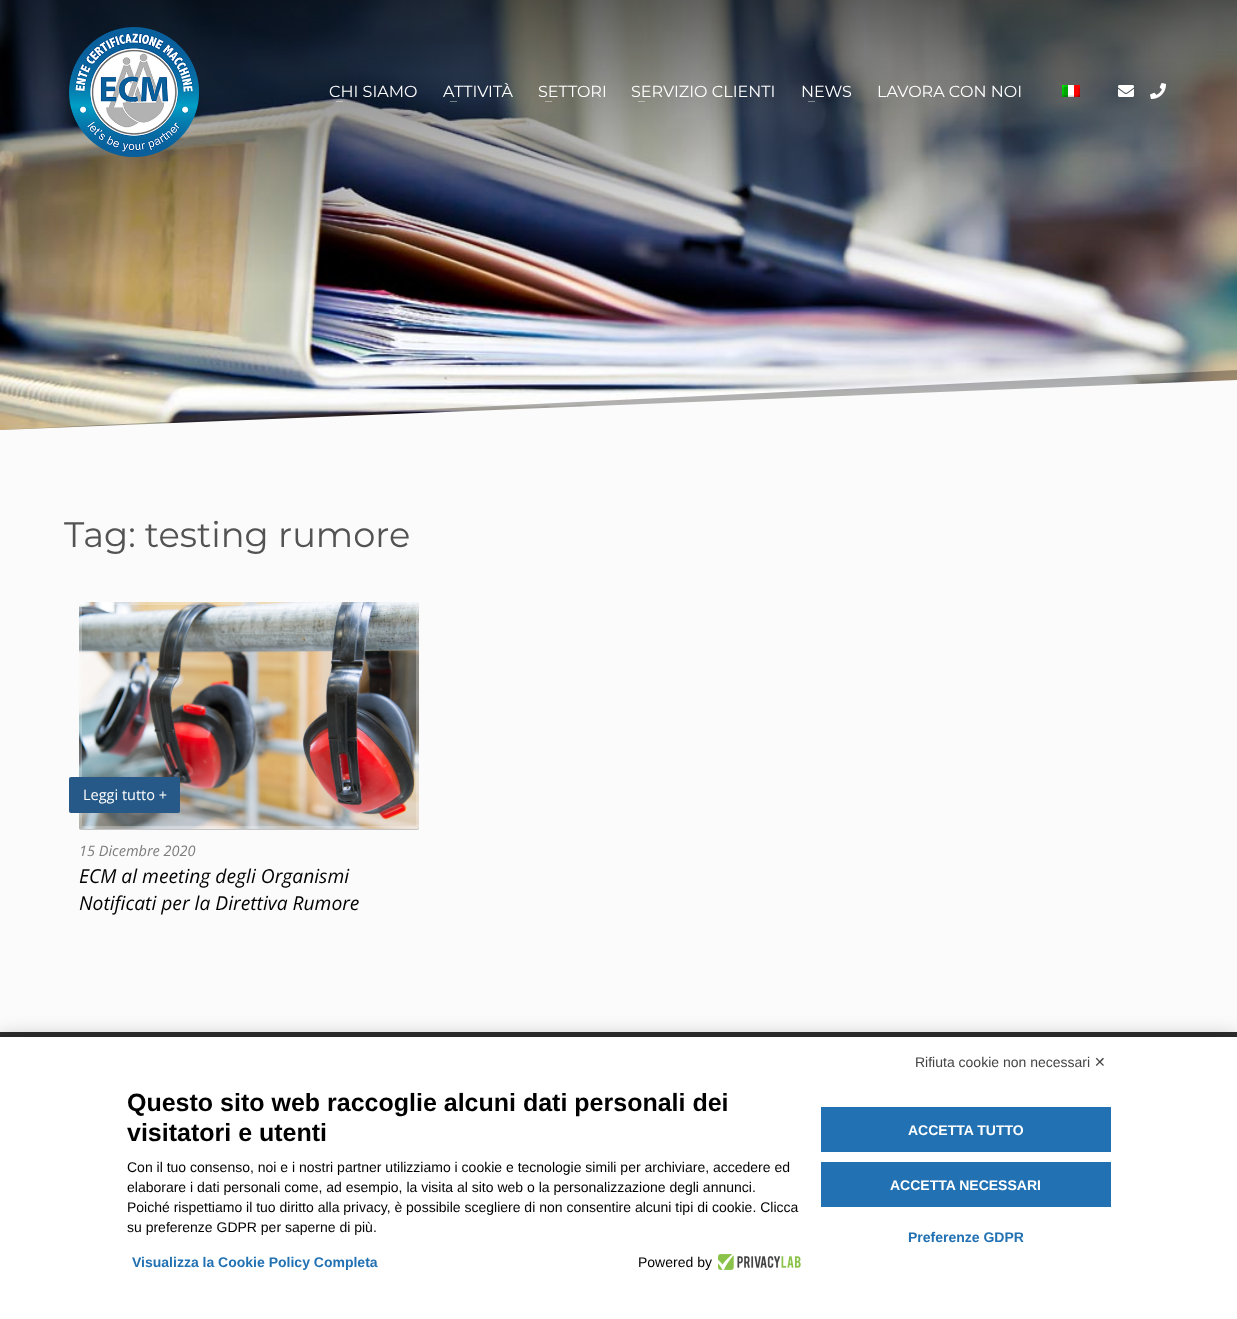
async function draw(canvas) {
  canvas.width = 1237;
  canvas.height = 1319;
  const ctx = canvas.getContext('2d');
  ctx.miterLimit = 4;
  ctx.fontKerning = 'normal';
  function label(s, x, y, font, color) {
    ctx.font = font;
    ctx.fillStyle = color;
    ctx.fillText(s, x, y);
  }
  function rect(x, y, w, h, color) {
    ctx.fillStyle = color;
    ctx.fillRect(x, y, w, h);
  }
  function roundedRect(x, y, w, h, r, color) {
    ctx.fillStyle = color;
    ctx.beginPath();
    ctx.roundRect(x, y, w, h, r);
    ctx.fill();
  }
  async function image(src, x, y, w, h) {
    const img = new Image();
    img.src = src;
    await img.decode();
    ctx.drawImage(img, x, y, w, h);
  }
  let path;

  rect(0, 0, 1237, 1319, '#fbfbfb');
  await image('assets/img1.png', 0, 0, 1237, 430);
  ctx.fillStyle = '#0000004d';
  path = new Path2D('M1237 370V430H0Z');
  ctx.fill(path);
  ctx.fillStyle = '#fbfbfb';
  path = new Path2D('M1237 380V430H0Z');
  ctx.fill(path);
  await image('assets/img2.png', 69, 27, 130, 130);
  label('CHI SIAMO', 329, 97, '100 16px Montserrat', '#fff');
  rect(336, 101, 7, 1, '#ffffff66');
  label('ATTIVITÀ', 443, 97, '100 16px Montserrat', '#fff');
  rect(450, 101, 7, 1, '#757e8b');
  label('SETTORI', 538, 97, '100 16px Montserrat', '#fff');
  rect(545, 101, 7, 1, '#afada6');
  label('SERVIZIO CLIENTI', 631, 97, '100 16px Montserrat', '#fff');
  rect(638, 101, 7, 1, '#b8b9b3');
  label('NEWS', 801, 97, '100 16px Montserrat', '#fff');
  rect(808, 101, 7, 1, '#ffffff66');
  label('LAVORA CON NOI', 877, 97, '100 16px Montserrat', '#fff');
  await image('assets/img3.png', 1062, 85, 18, 12);
  await image('assets/img4.png', 1118, 85, 16, 12);
  await image('assets/img5.png', 1150, 83, 16, 16);
  label('Tag: testing rumore', 64, 547, '100 35.25px Montserrat', '#535353');
  ctx.fillStyle = '#00000038';
  ctx.filter = 'blur(0.5px)';
  ctx.beginPath();
  ctx.roundRect(79, 603, 340, 227, 2);
  ctx.fill();
  ctx.filter = 'none';
  await image('assets/img6.png', 79, 602, 340, 227);
  ctx.beginPath();
  ctx.roundRect(80.5, 603.5, 337, 224, 0.5);
  ctx.strokeStyle = '#ffffff26';
  ctx.lineWidth = 3;
  ctx.stroke();
  ctx.beginPath();
  ctx.roundRect(80.5, 603.5, 337, 224, 1.5);
  ctx.stroke();
  roundedRect(69, 777, 111, 36, 2, '#265988');
  label('Leggi tutto +', 83, 800, '14.5px Open Sans', '#fff');
  label('15 Dicembre 2020', 79, 856, 'italic 14.5px Open Sans', '#7d7d7d');
  label('ECM al meeting degli Organismi', 79, 883, 'italic 19.25px Open Sans', '#000');
  label('Notificati per la Direttiva Rumore', 79, 910, 'italic 19.25px Open Sans', '#000');
  rect(0, 1032, 1237, 5, '#2f2f2f');
  ctx.fillStyle = '#00000045';
  ctx.filter = 'blur(10px)';
  ctx.beginPath();
  ctx.rect(0, 1037, 1237, 282);
  ctx.fill();
  ctx.filter = 'none';
  rect(0, 1037, 1237, 282, '#fff');
  label('Rifiuta cookie non necessari', 915, 1067, '14px Liberation Sans', '#444');
  label('✕', 1094, 1067, '14px DejaVu Sans', '#444');
  label('Questo sito web raccoglie alcuni dati personali dei', 127, 1111, 'bold 25px Liberation Sans', '#000');
  label('visitatori e utenti', 127, 1141, 'bold 25px Liberation Sans', '#000');
  label('Con il tuo consenso, noi e i nostri partner utilizziamo i cookie e tecnologie simili per archiviare, accedere ed', 127, 1172, '14px Liberation Sans', '#000');
  label('elaborare i dati personali come, ad esempio, la visita al sito web o la personalizzazione degli annunci.', 127, 1192, '14px Liberation Sans', '#000');
  label('Poiché rispettiamo il tuo diritto alla privacy, è possibile scegliere di non consentire alcuni tipi di cookie. Clicca', 127, 1212, '14px Liberation Sans', '#000');
  label('su preferenze GDPR per saperne di più.', 127, 1232, '14px Liberation Sans', '#000');
  label('Visualizza la Cookie Policy Completa', 132, 1267, 'bold 14px Liberation Sans', '#2271b3');
  label('Powered by', 638, 1267, '14px Liberation Sans', '#000');
  await image('assets/img7.png', 718, 1254, 83, 16);
  rect(821, 1107, 290, 45, '#2271b3');
  label('ACCETTA TUTTO', 908, 1135, 'bold 14px Liberation Sans', '#fff');
  rect(821, 1162, 290, 45, '#2271b3');
  label('ACCETTA NECESSARI', 890, 1190, 'bold 14px Liberation Sans', '#fff');
  label('Preferenze GDPR', 908, 1242, 'bold 14px Liberation Sans', '#2271b3');
}

draw(document.querySelector('canvas'));
